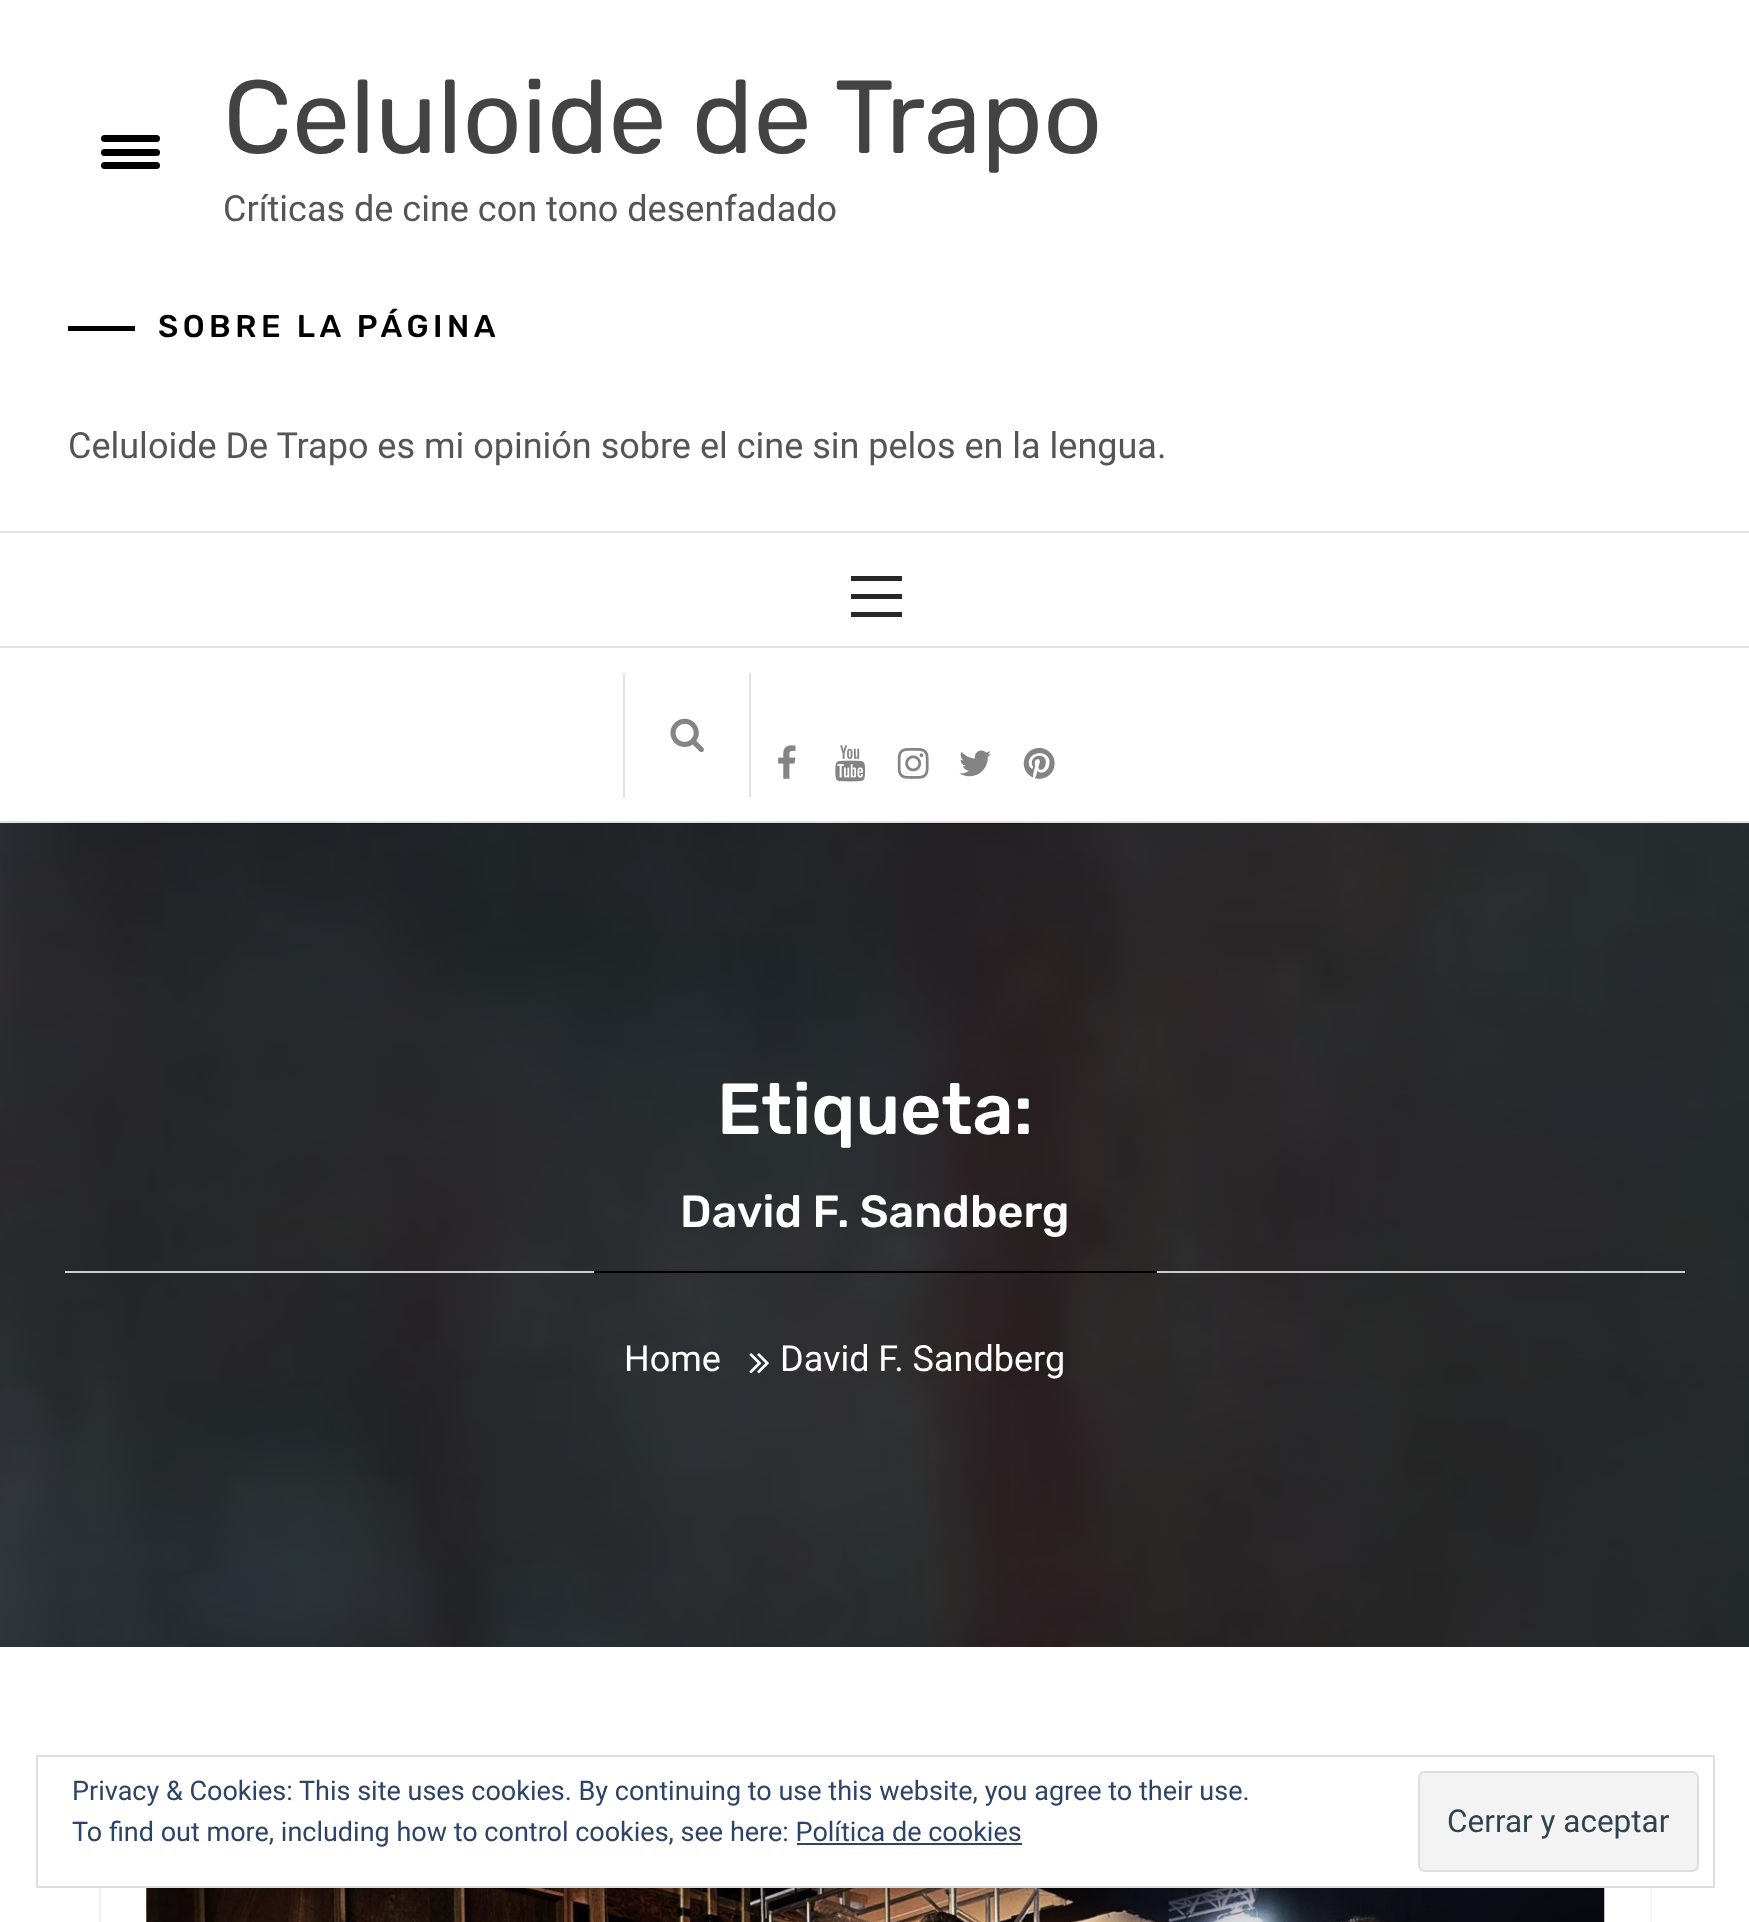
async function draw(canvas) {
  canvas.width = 1749;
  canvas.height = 1922;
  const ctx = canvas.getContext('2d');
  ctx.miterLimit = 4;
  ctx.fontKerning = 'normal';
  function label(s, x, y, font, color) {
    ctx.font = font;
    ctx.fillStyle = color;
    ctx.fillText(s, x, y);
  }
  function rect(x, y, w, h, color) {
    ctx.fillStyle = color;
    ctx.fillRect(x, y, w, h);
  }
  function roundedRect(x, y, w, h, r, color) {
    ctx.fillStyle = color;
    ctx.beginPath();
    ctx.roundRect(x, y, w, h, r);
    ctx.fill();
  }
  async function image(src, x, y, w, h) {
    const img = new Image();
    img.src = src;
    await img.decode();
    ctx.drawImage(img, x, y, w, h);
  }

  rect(0, 0, 1749, 1922, '#fff');
  roundedRect(101, 149, 59, 7, 3.5, '#000');
  roundedRect(101, 135, 59, 7, 3.5, '#000');
  roundedRect(101, 162, 59, 7, 3.5, '#000');
  label('Celuloide de Trapo', 223, 153, '103.5px Rubik', '#434343');
  label('Críticas de cine con tono desenfadado', 223, 221, '36px Roboto', '#555');
  rect(68, 326, 67, 5, '#000');
  ctx.letterSpacing = '4.5px';
  label('SOBRE LA PÁGINA', 158, 337, '500 31.5px Rubik', '#000');
  ctx.letterSpacing = '0px';
  label('Celuloide De Trapo es mi opinión sobre el cine sin pelos en la lengua.', 68, 458, '36px Roboto', '#555');
  rect(0, 531, 1749, 2, '#e2e1e8');
  rect(0, 821, 1749, 2, '#e2e1e8');
  rect(851, 594, 51, 5, '#282828');
  rect(851, 576, 51, 5, '#282828');
  rect(851, 612, 51, 5, '#282828');
  rect(0, 646, 1749, 2, '#e2e1e8');
  rect(749, 673, 2, 124, '#e2e1e8');
  rect(623, 673, 2, 124, '#e2e1e8');
  await image('assets/img1.png', 670, 718, 34, 35);
  await image('assets/img2.png', 778, 745, 18, 34);
  await image('assets/img3.png', 835, 745, 31, 37);
  await image('assets/img4.png', 897, 748, 32, 31);
  await image('assets/img5.png', 959, 750, 32, 27);
  await image('assets/img6.png', 1023, 748, 32, 31);
  await image('assets/img7.png', 0, 823, 1749, 824);
  rect(65, 1271, 1620, 2, '#ccc');
  label('Etiqueta:', 717, 1134, '500 72px Rubik', '#fff');
  label('David F. Sandberg', 680, 1227, '500 45px Rubik', '#fff');
  rect(594, 1271, 563, 2, '#000');
  label('Home', 624, 1371, '36px Roboto', '#fff');
  await image('assets/img8.png', 749, 1353, 20, 21);
  label('David F. Sandberg', 780, 1371, '36px Roboto', '#fff');
  ctx.strokeStyle = '#f3f3f3';
  ctx.lineWidth = 2;
  ctx.strokeRect(100, 1761, 1551, 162);
  await image('assets/img9.png', 146, 1888, 1459, 34);
  rect(99, 1760, 1553, 126, '#fff');
  ctx.strokeStyle = '#dedede';
  ctx.strokeRect(37, 1756, 1677, 131);
  label('Privacy & Cookies: This site uses cookies. By continuing to use this website, you agree to their use.', 72, 1800, '27px Roboto', '#2e4467');
  label('To find out more, including how to control cookies, see here: Política de cookies', 72, 1841, '27px Roboto', '#2e4467');
  ctx.fillStyle = '#f3f3f3';
  ctx.beginPath();
  ctx.roundRect(1419, 1772, 279, 99, 6);
  ctx.fill();
  ctx.stroke();
  label('Cerrar y aceptar', 1447, 1832, '31.5px Roboto', '#2e4453');
  rect(797, 1843, 225, 2, '#2e4467');
}

draw(document.querySelector('canvas'));
